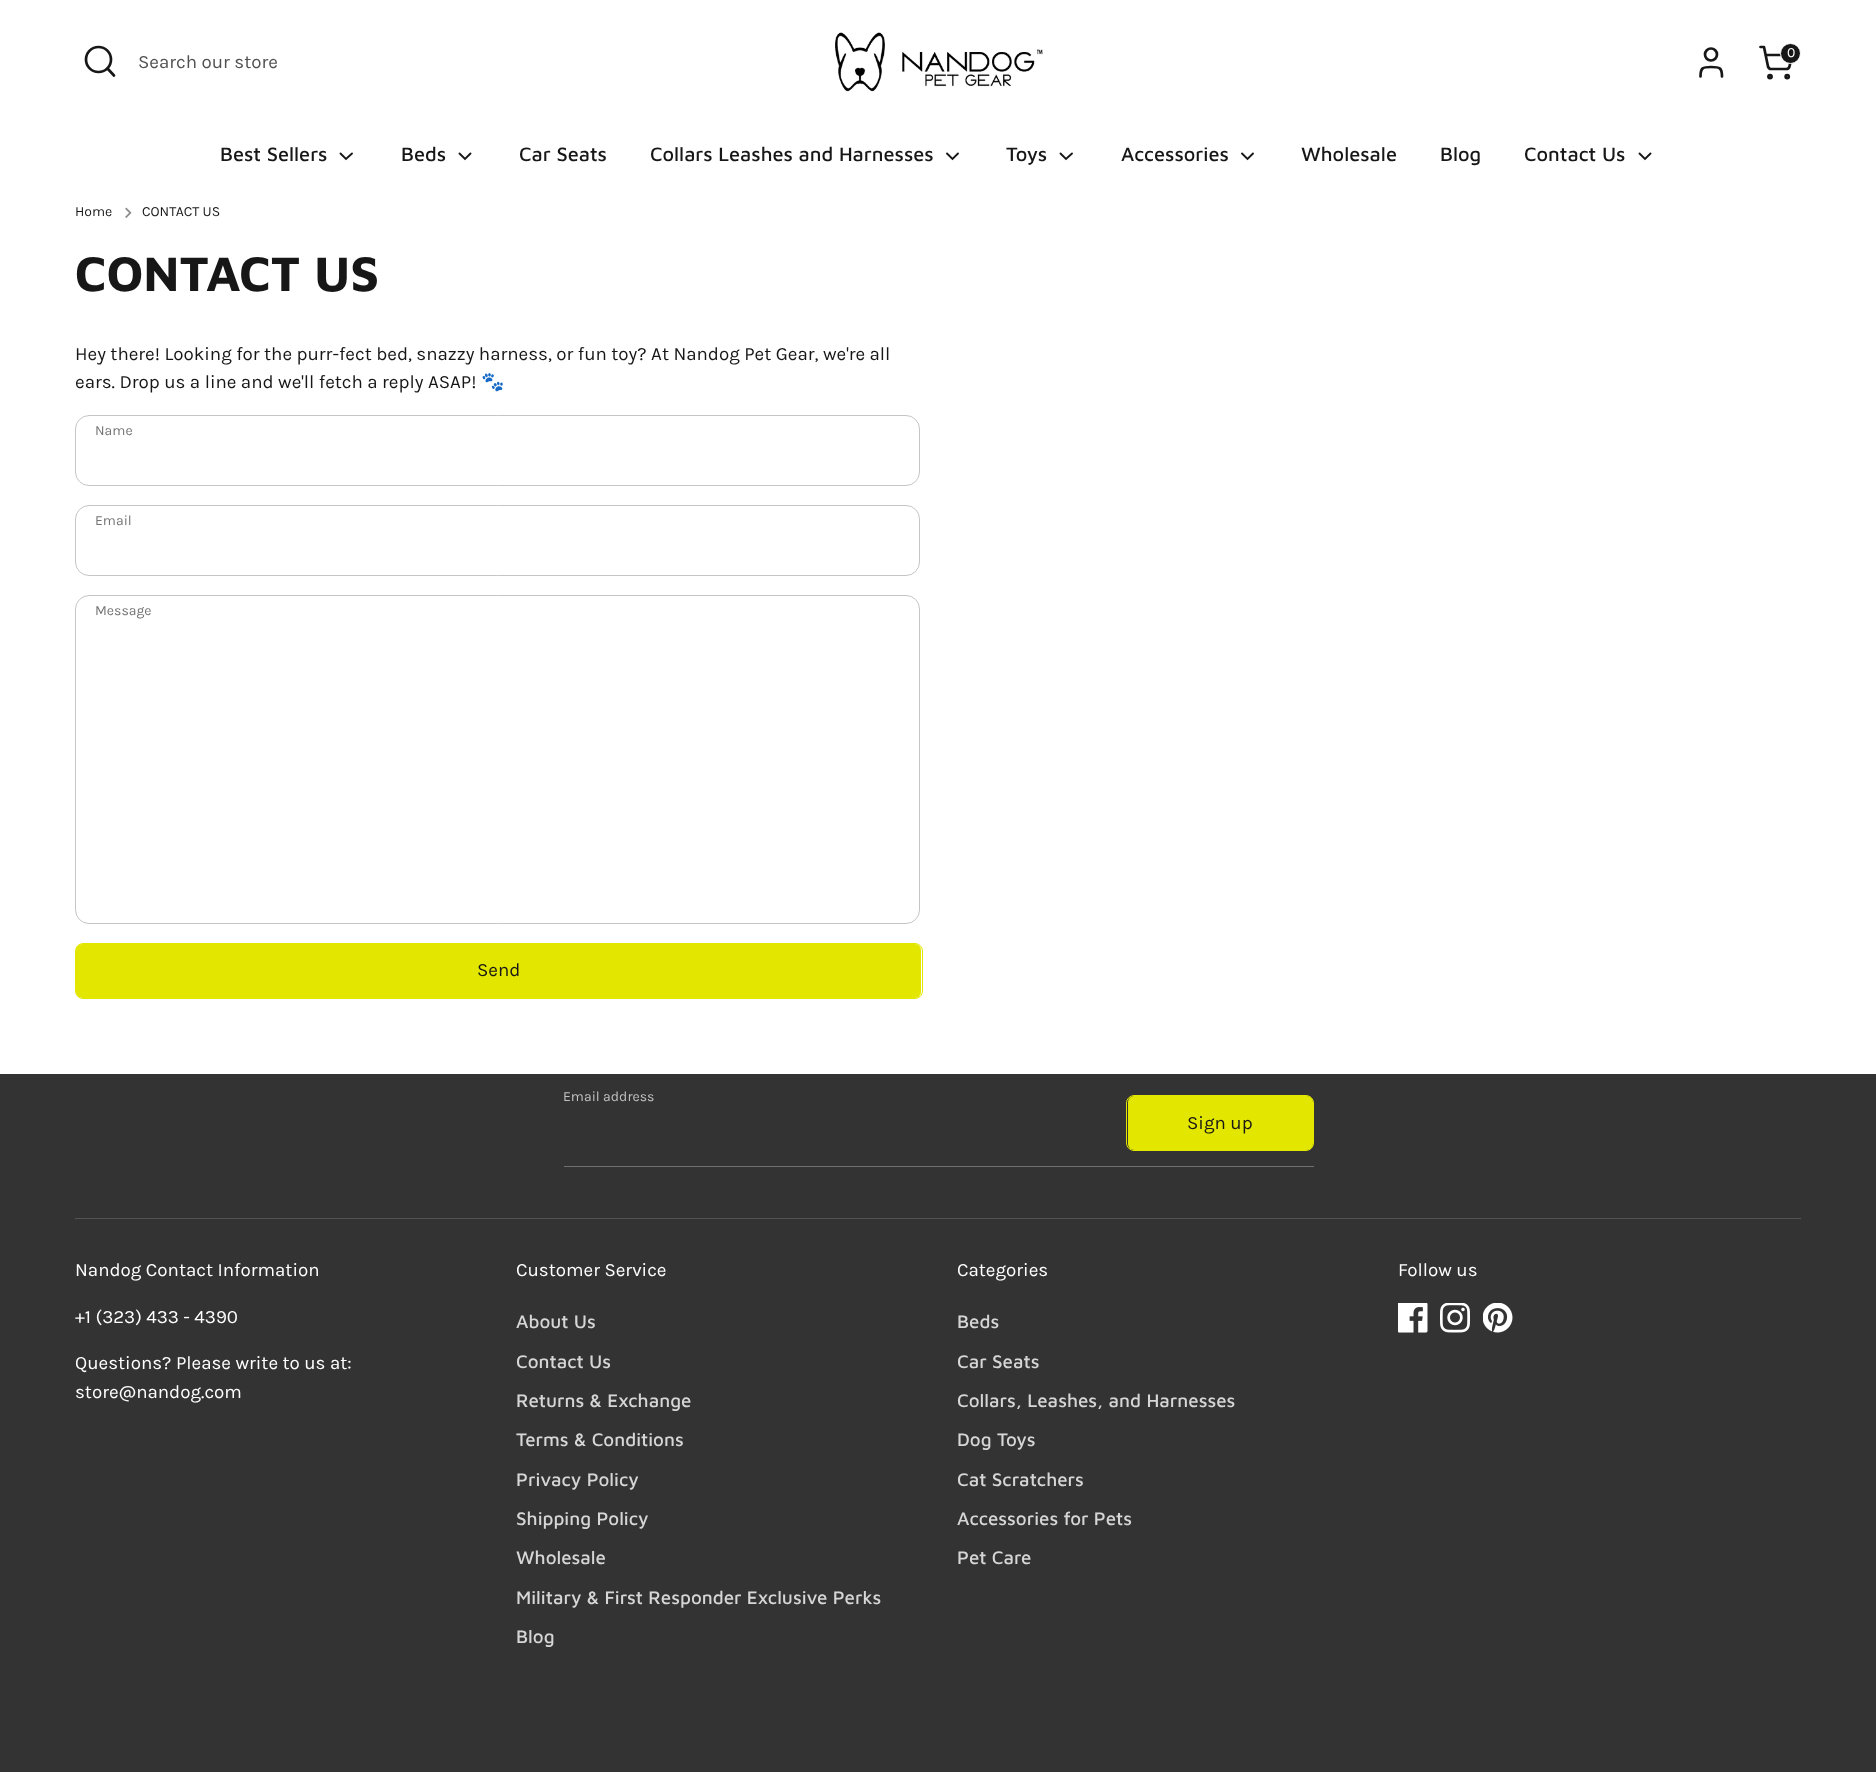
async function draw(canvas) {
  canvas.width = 1876;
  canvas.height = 1772;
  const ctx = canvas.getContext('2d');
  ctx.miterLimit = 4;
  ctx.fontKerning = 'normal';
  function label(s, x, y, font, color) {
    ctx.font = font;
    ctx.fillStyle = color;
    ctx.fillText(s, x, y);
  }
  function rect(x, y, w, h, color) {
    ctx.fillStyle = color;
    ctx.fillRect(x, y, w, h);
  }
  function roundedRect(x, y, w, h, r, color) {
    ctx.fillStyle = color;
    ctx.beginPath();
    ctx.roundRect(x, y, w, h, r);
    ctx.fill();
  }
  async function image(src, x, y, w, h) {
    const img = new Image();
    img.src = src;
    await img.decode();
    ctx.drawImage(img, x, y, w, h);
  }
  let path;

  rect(0, 0, 1876, 1772, '#fff');
  await image('assets/img1.png', 835, 32, 208, 60);
  path = new Path2D('M1722 76.5C1722 67.5 1719.5 67 1711 67C1703 67 1700.5 67.5 1700.5 76.5');
  ctx.strokeStyle = '#171717';
  ctx.lineWidth = 2.7;
  ctx.lineCap = 'round';
  ctx.lineJoin = 'round';
  ctx.stroke(path);
  ctx.beginPath();
  ctx.arc(1711, 54.5, 6, 0, 2 * Math.PI);
  ctx.stroke();
  ctx.beginPath();
  ctx.arc(1770, 76.6, 1.6, 0, 2 * Math.PI);
  ctx.stroke();
  ctx.beginPath();
  ctx.arc(1787.2, 76.6, 1.6, 0, 2 * Math.PI);
  ctx.stroke();
  path = new Path2D('M1760.5 47H1764L1768 66.5C1768.5 68 1769.5 69 1771 69H1786.5C1788 69 1789 68 1789.5 66.5L1792 55H1765.5');
  ctx.stroke(path);
  ctx.fillStyle = '#171717';
  ctx.beginPath();
  ctx.arc(1790.5, 53.5, 10, 0, 2 * Math.PI);
  ctx.fill();
  ctx.strokeStyle = '#fff';
  ctx.lineWidth = 1;
  ctx.stroke();
  label('0', 1787, 57, '14px Karla', '#fff');
  ctx.beginPath();
  ctx.arc(98.5, 59.5, 12.5, 0, 2 * Math.PI);
  ctx.strokeStyle = '#171717';
  ctx.lineWidth = 2.7;
  ctx.stroke();
  path = new Path2D('M114 75.5L107.5 68.5');
  ctx.stroke(path);
  label('Search our store', 138, 68, '18.75px Karla', '#515151');
  label('Best Sellers', 220, 161, '500 20px Maven Pro', '#171717');
  path = new Path2D('M340.5 153.5L346 159L352 153.5');
  ctx.lineWidth = 1.9;
  ctx.lineJoin = 'miter';
  ctx.stroke(path);
  label('Beds', 401, 161, '500 20px Maven Pro', '#171717');
  path = new Path2D('M459.5 153.5L465 159L470.5 153.5');
  ctx.stroke(path);
  label('Car Seats', 519, 161, '500 20px Maven Pro', '#171717');
  label('Collars Leashes and Harnesses', 650, 161, '500 20px Maven Pro', '#171717');
  path = new Path2D('M947 153.5L952.5 159L958 153.5');
  ctx.stroke(path);
  label('Toys', 1006, 161, '500 20px Maven Pro', '#171717');
  path = new Path2D('M1060.5 153.5L1066 159L1072 153.5');
  ctx.stroke(path);
  label('Accessories', 1121, 161, '500 20px Maven Pro', '#171717');
  path = new Path2D('M1242 153.5L1247.5 159L1253 153.5');
  ctx.stroke(path);
  label('Wholesale', 1301, 161, '500 20px Maven Pro', '#171717');
  label('Blog', 1440, 161, '500 20px Maven Pro', '#171717');
  label('Contact Us', 1524, 161, '500 20px Maven Pro', '#171717');
  path = new Path2D('M1639.5 153.5L1645 159L1650.5 153.5');
  ctx.stroke(path);
  label('Home', 75, 216, '14px Karla', '#171717');
  await image('assets/img2.png', 125, 207, 7, 11);
  label('CONTACT US', 142, 216, '14px Karla', '#171717');
  label('CONTACT US', 75, 291, 'bold 50px Maven Pro', '#171717');
  label('Hey there! Looking for the purr-fect bed, snazzy harness, or fun toy? At Nandog Pet Gear, we\'re all', 75, 360, '18.75px Karla', '#171717');
  label('ears. Drop us a line and we\'ll fetch a reply ASAP!', 75, 388, '18.75px Karla', '#171717');
  label('🐾', 481, 388, '18.75px Noto Color Emoji', '#171717');
  ctx.beginPath();
  ctx.roundRect(75.5, 415.5, 844, 70, 13.5);
  ctx.strokeStyle = '#c5c5c5';
  ctx.lineWidth = 1;
  ctx.stroke();
  label('Name', 95, 435, '14px Karla', '#747474');
  ctx.beginPath();
  ctx.roundRect(75.5, 505.5, 844, 70, 13.5);
  ctx.stroke();
  label('Email', 95, 525, '14px Karla', '#747474');
  ctx.beginPath();
  ctx.roundRect(75.5, 595.5, 844, 328, 13.5);
  ctx.stroke();
  label('Message', 95, 615, '14px Karla', '#747474');
  ctx.beginPath();
  ctx.roundRect(75.5, 943.5, 847, 55, 7.5);
  ctx.strokeStyle = '#e3e700';
  ctx.stroke();
  roundedRect(76, 944, 845, 54, 6, '#e3e700');
  label('Send', 477, 976, '18.75px Karla', '#171717');
  rect(0, 1074, 1876, 698, '#333');
  rect(564, 1166, 750, 1, '#707070');
  label('Email address', 563, 1101, '14px Karla', '#c2c2c2');
  ctx.beginPath();
  ctx.roundRect(1126.5, 1095.5, 187, 55, 7.5);
  ctx.stroke();
  roundedRect(1128, 1096, 185, 54, 6, '#e3e700');
  label('Sign up', 1187, 1129, '18.75px Karla', '#171717');
  rect(75, 1218, 1726, 1, '#525252');
  label('Nandog Contact Information', 75, 1276, '18.75px Karla', '#fff');
  label('+1 (323) 433 - 4390', 75, 1323, '18.75px Karla', '#fff');
  label('Questions? Please write to us at:', 75, 1369, '18.75px Karla', '#fff');
  label('store@nandog.com', 75, 1398, '18.75px Karla', '#fff');
  label('Customer Service', 516, 1276, '18.75px Karla', '#fff');
  label('About Us', 516, 1328, '500 18.75px Maven Pro', '#d6d6d6');
  label('Contact Us', 516, 1368, '500 18.75px Maven Pro', '#d6d6d6');
  label('Returns & Exchange', 516, 1407, '500 18.75px Maven Pro', '#d6d6d6');
  label('Terms & Conditions', 516, 1446, '500 18.75px Maven Pro', '#d6d6d6');
  label('Privacy Policy', 516, 1486, '500 18.75px Maven Pro', '#d6d6d6');
  label('Shipping Policy', 516, 1525, '500 18.75px Maven Pro', '#d6d6d6');
  label('Wholesale', 516, 1564, '500 18.75px Maven Pro', '#d6d6d6');
  label('Military & First Responder Exclusive Perks', 516, 1604, '500 18.75px Maven Pro', '#d6d6d6');
  label('Blog', 516, 1643, '500 18.75px Maven Pro', '#d6d6d6');
  label('Categories', 957, 1276, '18.75px Karla', '#fff');
  label('Beds', 957, 1328, '500 18.75px Maven Pro', '#d6d6d6');
  label('Car Seats', 957, 1368, '500 18.75px Maven Pro', '#d6d6d6');
  label('Collars, Leashes, and Harnesses', 957, 1407, '500 18.75px Maven Pro', '#d6d6d6');
  label('Dog Toys', 957, 1446, '500 18.75px Maven Pro', '#d6d6d6');
  label('Cat Scratchers', 957, 1486, '500 18.75px Maven Pro', '#d6d6d6');
  label('Accessories for Pets', 957, 1525, '500 18.75px Maven Pro', '#d6d6d6');
  label('Pet Care', 957, 1564, '500 18.75px Maven Pro', '#d6d6d6');
  label('Follow us', 1398, 1276, '18.75px Karla', '#fff');
  await image('assets/img3.png', 1398, 1303, 30, 30);
  await image('assets/img4.png', 1440, 1303, 30, 30);
  await image('assets/img5.png', 1483, 1303, 30, 30);
}

draw(document.querySelector('canvas'));
